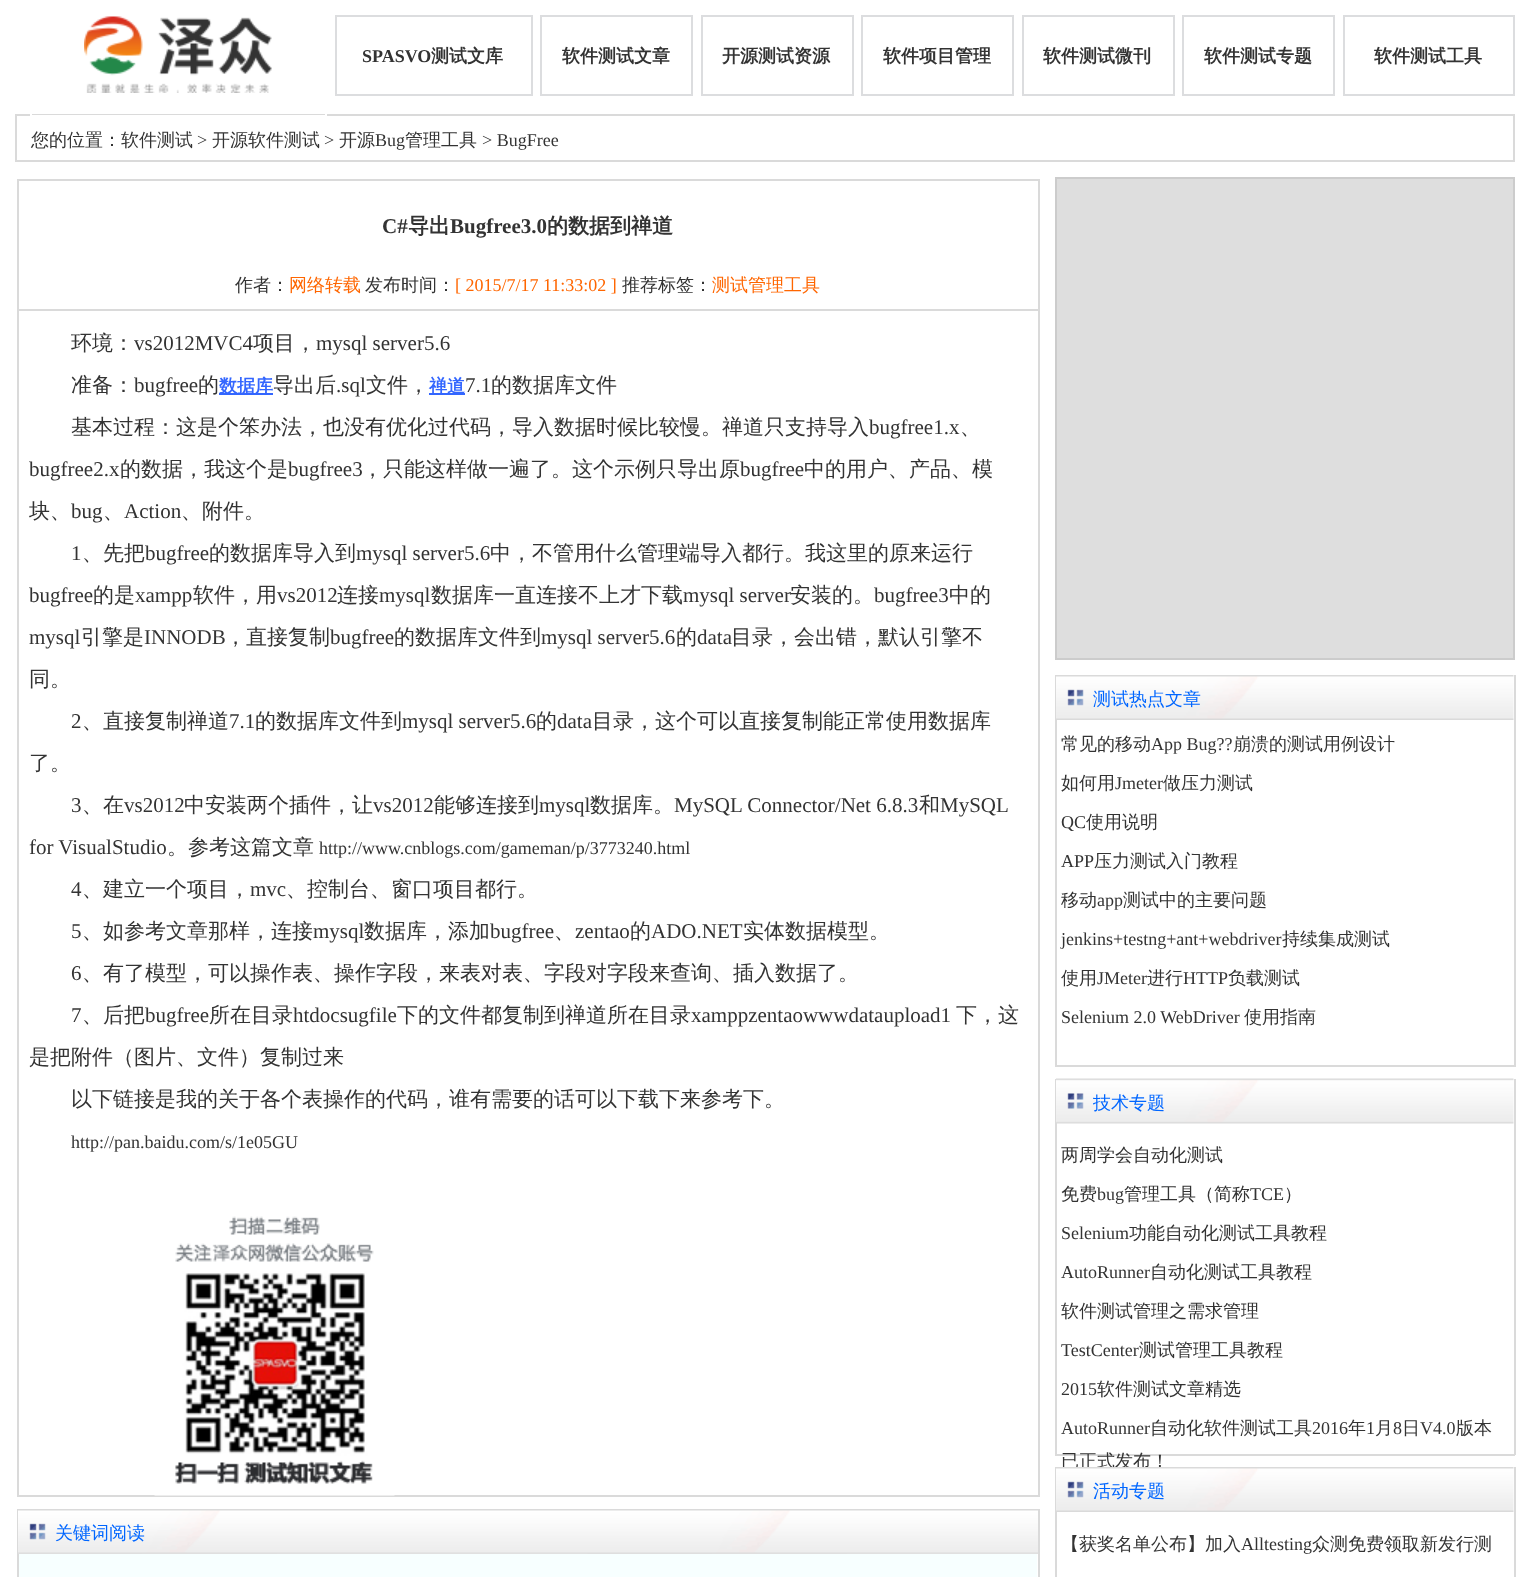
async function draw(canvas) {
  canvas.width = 1528;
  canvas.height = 1577;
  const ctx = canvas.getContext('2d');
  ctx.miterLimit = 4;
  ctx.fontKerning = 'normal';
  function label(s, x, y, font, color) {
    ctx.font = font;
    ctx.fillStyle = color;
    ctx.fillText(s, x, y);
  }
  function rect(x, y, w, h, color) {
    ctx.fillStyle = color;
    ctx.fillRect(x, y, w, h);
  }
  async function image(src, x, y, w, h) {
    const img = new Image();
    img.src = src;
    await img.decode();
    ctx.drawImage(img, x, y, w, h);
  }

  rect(0, 0, 1528, 1577, '#fff');
  ctx.strokeStyle = '#dadada';
  ctx.lineWidth = 2;
  ctx.strokeRect(16, 115, 1498, 46);
  ctx.strokeStyle = '#fff';
  ctx.strokeRect(31, 16, 295, 100);
  await image('assets/img1.png', 84, 16, 188, 77);
  ctx.strokeStyle = '#dcdddf';
  ctx.strokeRect(336, 16, 196, 79);
  label('SPASVO', 362, 62, 'bold 18px Liberation Serif', '#333');
  label('测试文库', 431, 62, 'bold 18px WenQuanYi Zen Hei', '#333');
  ctx.strokeRect(541, 16, 151, 79);
  label('软件测试文章', 562, 62, 'bold 18px WenQuanYi Zen Hei', '#333');
  ctx.strokeRect(702, 16, 151, 79);
  label('开源测试资源', 722, 62, 'bold 18px WenQuanYi Zen Hei', '#333');
  ctx.strokeRect(862, 16, 151, 79);
  label('软件项目管理', 883, 62, 'bold 18px WenQuanYi Zen Hei', '#333');
  ctx.strokeRect(1023, 16, 151, 79);
  label('软件测试微刊', 1043, 62, 'bold 18px WenQuanYi Zen Hei', '#333');
  ctx.strokeRect(1183, 16, 151, 79);
  label('软件测试专题', 1204, 62, 'bold 18px WenQuanYi Zen Hei', '#333');
  ctx.strokeRect(1344, 16, 170, 79);
  label('软件测试工具', 1374, 62, 'bold 18px WenQuanYi Zen Hei', '#333');
  label('您的位置：软件测试', 31, 146, '500 18px WenQuanYi Zen Hei', '#333');
  label('>', 197, 146, '18px Liberation Serif', '#333');
  label('开源软件测试', 212, 146, '500 18px WenQuanYi Zen Hei', '#333');
  label('>', 324, 146, '18px Liberation Serif', '#333');
  label('开源', 339, 146, '500 18px WenQuanYi Zen Hei', '#333');
  label('Bug', 375, 146, '18px Liberation Serif', '#333');
  label('管理工具', 405, 146, '500 18px WenQuanYi Zen Hei', '#333');
  label('> BugFree', 482, 146, '18px Liberation Serif', '#333');
  ctx.strokeStyle = '#dadada';
  ctx.strokeRect(18, 180, 1021, 1316);
  label('C#', 382, 233, 'bold 21px Liberation Serif', '#333');
  label('导出', 408, 233, 'bold 21px WenQuanYi Zen Hei', '#333');
  label('Bugfree3.0', 450, 233, 'bold 21px Liberation Serif', '#333');
  label('的数据到禅道', 547, 233, 'bold 21px WenQuanYi Zen Hei', '#333');
  rect(18, 309, 1020, 2, '#dadada');
  label('作者：', 235, 291, '500 18px WenQuanYi Zen Hei', '#333');
  label('网络转载', 289, 291, '500 18px WenQuanYi Zen Hei', '#f60');
  label('发布时间：', 365, 291, '500 18px WenQuanYi Zen Hei', '#333');
  label('[ 2015/7/17 11:33:02 ]', 455, 291, '18px Liberation Serif', '#f60');
  label('推荐标签：', 622, 291, '500 18px WenQuanYi Zen Hei', '#333');
  label('测试管理工具', 712, 291, '500 18px WenQuanYi Zen Hei', '#f60');
  label('环境：', 71, 350, '500 21px WenQuanYi Zen Hei', '#333');
  label('vs2012MVC4', 134, 350, '21px Liberation Serif', '#333');
  label('项目，', 253, 350, '500 21px WenQuanYi Zen Hei', '#333');
  label('mysql server5.6', 316, 350, '21px Liberation Serif', '#333');
  label('准备：', 71, 392, '500 21px WenQuanYi Zen Hei', '#333');
  label('bugfree', 134, 392, '21px Liberation Serif', '#333');
  label('的', 198, 392, '500 21px WenQuanYi Zen Hei', '#333');
  rect(219, 393, 54, 2, '#36f');
  label('数据库', 219, 392, 'bold 18px WenQuanYi Zen Hei', '#36f');
  label('导出后', 273, 392, '500 21px WenQuanYi Zen Hei', '#333');
  label('.sql', 336, 392, '21px Liberation Serif', '#333');
  label('文件，', 366, 392, '500 21px WenQuanYi Zen Hei', '#333');
  rect(429, 393, 36, 2, '#36f');
  label('禅道', 429, 392, 'bold 18px WenQuanYi Zen Hei', '#36f');
  label('7.1', 465, 392, '21px Liberation Serif', '#333');
  label('的数据库文件', 491, 392, '500 21px WenQuanYi Zen Hei', '#333');
  label('基本过程：这是个笨办法，也没有优化过代码，导入数据时候比较慢。禅道只支持导入', 71, 434, '500 21px WenQuanYi Zen Hei', '#333');
  label('bugfree1.x', 869, 434, '21px Liberation Serif', '#333');
  label('、', 960, 434, '500 21px WenQuanYi Zen Hei', '#333');
  label('bugfree2.x', 29, 476, '21px Liberation Serif', '#333');
  label('的数据，我这个是', 120, 476, '500 21px WenQuanYi Zen Hei', '#333');
  label('bugfree3', 288, 476, '21px Liberation Serif', '#333');
  label('，只能这样做一遍了。这个示例只导出原', 362, 476, '500 21px WenQuanYi Zen Hei', '#333');
  label('bugfree', 740, 476, '21px Liberation Serif', '#333');
  label('中的用户、产品、模', 804, 476, '500 21px WenQuanYi Zen Hei', '#333');
  label('块、', 29, 518, '500 21px WenQuanYi Zen Hei', '#333');
  label('bug', 71, 518, '21px Liberation Serif', '#333');
  label('、', 103, 518, '500 21px WenQuanYi Zen Hei', '#333');
  label('Action', 124, 518, '21px Liberation Serif', '#333');
  label('、附件。', 181, 518, '500 21px WenQuanYi Zen Hei', '#333');
  label('1', 71, 560, '21px Liberation Serif', '#333');
  label('、先把', 82, 560, '500 21px WenQuanYi Zen Hei', '#333');
  label('bugfree', 145, 560, '21px Liberation Serif', '#333');
  label('的数据库导入到', 209, 560, '500 21px WenQuanYi Zen Hei', '#333');
  label('mysql server5.6', 356, 560, '21px Liberation Serif', '#333');
  label('中，不管用什么管理端导入都行。我这里的原来运行', 490, 560, '500 21px WenQuanYi Zen Hei', '#333');
  label('bugfree', 29, 602, '21px Liberation Serif', '#333');
  label('的是', 93, 602, '500 21px WenQuanYi Zen Hei', '#333');
  label('xampp', 135, 602, '21px Liberation Serif', '#333');
  label('软件，用', 193, 602, '500 21px WenQuanYi Zen Hei', '#333');
  label('vs2012', 277, 602, '21px Liberation Serif', '#333');
  label('连接', 337, 602, '500 21px WenQuanYi Zen Hei', '#333');
  label('mysql', 379, 602, '21px Liberation Serif', '#333');
  label('数据库一直连接不上才下载', 431, 602, '500 21px WenQuanYi Zen Hei', '#333');
  label('mysql server', 683, 602, '21px Liberation Serif', '#333');
  label('安装的。', 790, 602, '500 21px WenQuanYi Zen Hei', '#333');
  label('bugfree3', 874, 602, '21px Liberation Serif', '#333');
  label('中的', 949, 602, '500 21px WenQuanYi Zen Hei', '#333');
  label('mysql', 29, 644, '21px Liberation Serif', '#333');
  label('引擎是', 81, 644, '500 21px WenQuanYi Zen Hei', '#333');
  label('INNODB', 144, 644, '21px Liberation Serif', '#333');
  label('，直接复制', 225, 644, '500 21px WenQuanYi Zen Hei', '#333');
  label('bugfree', 330, 644, '21px Liberation Serif', '#333');
  label('的数据库文件到', 394, 644, '500 21px WenQuanYi Zen Hei', '#333');
  label('mysql server5.6', 541, 644, '21px Liberation Serif', '#333');
  label('的', 676, 644, '500 21px WenQuanYi Zen Hei', '#333');
  label('data', 697, 644, '21px Liberation Serif', '#333');
  label('目录，会出错，默认引擎不', 731, 644, '500 21px WenQuanYi Zen Hei', '#333');
  label('同。', 29, 686, '500 21px WenQuanYi Zen Hei', '#333');
  label('2', 71, 728, '21px Liberation Serif', '#333');
  label('、直接复制禅道', 82, 728, '500 21px WenQuanYi Zen Hei', '#333');
  label('7.1', 229, 728, '21px Liberation Serif', '#333');
  label('的数据库文件到', 255, 728, '500 21px WenQuanYi Zen Hei', '#333');
  label('mysql server5.6', 402, 728, '21px Liberation Serif', '#333');
  label('的', 536, 728, '500 21px WenQuanYi Zen Hei', '#333');
  label('data', 557, 728, '21px Liberation Serif', '#333');
  label('目录，这个可以直接复制能正常使用数据库', 592, 728, '500 21px WenQuanYi Zen Hei', '#333');
  label('了。', 29, 770, '500 21px WenQuanYi Zen Hei', '#333');
  label('3', 71, 812, '21px Liberation Serif', '#333');
  label('、在', 82, 812, '500 21px WenQuanYi Zen Hei', '#333');
  label('vs2012', 124, 812, '21px Liberation Serif', '#333');
  label('中安装两个插件，让', 184, 812, '500 21px WenQuanYi Zen Hei', '#333');
  label('vs2012', 373, 812, '21px Liberation Serif', '#333');
  label('能够连接到', 434, 812, '500 21px WenQuanYi Zen Hei', '#333');
  label('mysql', 539, 812, '21px Liberation Serif', '#333');
  label('数据库。', 590, 812, '500 21px WenQuanYi Zen Hei', '#333');
  label('MySQL Connector/Net 6.8.3', 674, 812, '21px Liberation Serif', '#333');
  label('和', 919, 812, '500 21px WenQuanYi Zen Hei', '#333');
  label('MySQL', 940, 812, '21px Liberation Serif', '#333');
  label('for VisualStudio', 29, 854, '21px Liberation Serif', '#333');
  label('。参考这篇文章', 167, 854, '500 21px WenQuanYi Zen Hei', '#333');
  label('http://www.cnblogs.com/gameman/p/3773240.html', 319, 854, '18px Liberation Serif', '#333');
  label('4', 71, 896, '21px Liberation Serif', '#333');
  label('、建立一个项目，', 82, 896, '500 21px WenQuanYi Zen Hei', '#333');
  label('mvc', 250, 896, '21px Liberation Serif', '#333');
  label('、控制台、窗口项目都行。', 286, 896, '500 21px WenQuanYi Zen Hei', '#333');
  label('5', 71, 938, '21px Liberation Serif', '#333');
  label('、如参考文章那样，连接', 82, 938, '500 21px WenQuanYi Zen Hei', '#333');
  label('mysql', 313, 938, '21px Liberation Serif', '#333');
  label('数据库，添加', 364, 938, '500 21px WenQuanYi Zen Hei', '#333');
  label('bugfree', 490, 938, '21px Liberation Serif', '#333');
  label('、', 554, 938, '500 21px WenQuanYi Zen Hei', '#333');
  label('zentao', 575, 938, '21px Liberation Serif', '#333');
  label('的', 630, 938, '500 21px WenQuanYi Zen Hei', '#333');
  label('ADO.NET', 651, 938, '21px Liberation Serif', '#333');
  label('实体数据模型。', 743, 938, '500 21px WenQuanYi Zen Hei', '#333');
  label('6', 71, 980, '21px Liberation Serif', '#333');
  label('、有了模型，可以操作表、操作字段，来表对表、字段对字段来查询、插入数据了。', 82, 980, '500 21px WenQuanYi Zen Hei', '#333');
  label('7', 71, 1022, '21px Liberation Serif', '#333');
  label('、后把', 82, 1022, '500 21px WenQuanYi Zen Hei', '#333');
  label('bugfree', 145, 1022, '21px Liberation Serif', '#333');
  label('所在目录', 209, 1022, '500 21px WenQuanYi Zen Hei', '#333');
  label('htdocsugfile', 293, 1022, '21px Liberation Serif', '#333');
  label('下的文件都复制到禅道所在目录', 397, 1022, '500 21px WenQuanYi Zen Hei', '#333');
  label('xamppzentaowwwdataupload1', 691, 1022, '21px Liberation Serif', '#333');
  label('下，这', 956, 1022, '500 21px WenQuanYi Zen Hei', '#333');
  label('是把附件（图片、文件）复制过来', 29, 1064, '500 21px WenQuanYi Zen Hei', '#333');
  label('以下链接是我的关于各个表操作的代码，谁有需要的话可以下载下来参考下。', 71, 1106, '500 21px WenQuanYi Zen Hei', '#333');
  label('http://pan.baidu.com/s/1e05GU', 71, 1148, '18px Liberation Serif', '#333');
  await image('assets/img2.png', 154, 1216, 241, 280);
  rect(19, 1554, 1018, 23, '#f7ffff');
  rect(1038, 1509, 2, 68, '#dadada');
  rect(17, 1509, 2, 68, '#dadada');
  await image('assets/img3.png', 18, 1509, 1020, 45);
  await image('assets/img4.png', 29, 1523, 17, 17);
  label('关键词阅读', 55, 1539, '500 18px WenQuanYi Zen Hei', '#06f');
  ctx.fillStyle = '#dedede';
  ctx.beginPath();
  ctx.rect(1056, 178, 458, 481);
  ctx.fill();
  ctx.strokeStyle = '#ccc';
  ctx.stroke();
  rect(1514, 675, 2, 392, '#dadada');
  rect(1055, 1065, 460, 2, '#dadada');
  rect(1055, 675, 2, 392, '#dadada');
  await image('assets/img5.png', 1056, 675, 458, 45);
  await image('assets/img6.png', 1067, 689, 17, 17);
  label('测试热点文章', 1093, 705, '500 18px WenQuanYi Zen Hei', '#06f');
  label('常见的移动', 1061, 750, '500 18px WenQuanYi Zen Hei', '#333');
  label('App Bug??', 1151, 750, '18px Liberation Serif', '#333');
  label('崩溃的测试用例设计', 1233, 750, '500 18px WenQuanYi Zen Hei', '#333');
  label('如何用', 1061, 789, '500 18px WenQuanYi Zen Hei', '#333');
  label('Jmeter', 1115, 789, '18px Liberation Serif', '#333');
  label('做压力测试', 1163, 789, '500 18px WenQuanYi Zen Hei', '#333');
  label('QC', 1061, 828, '18px Liberation Serif', '#333');
  label('使用说明', 1086, 828, '500 18px WenQuanYi Zen Hei', '#333');
  label('APP', 1061, 867, '18px Liberation Serif', '#333');
  label('压力测试入门教程', 1094, 867, '500 18px WenQuanYi Zen Hei', '#333');
  label('移动', 1061, 906, '500 18px WenQuanYi Zen Hei', '#333');
  label('app', 1097, 906, '18px Liberation Serif', '#333');
  label('测试中的主要问题', 1123, 906, '500 18px WenQuanYi Zen Hei', '#333');
  label('jenkins+testng+ant+webdriver', 1061, 945, '18px Liberation Serif', '#333');
  label('持续集成测试', 1282, 945, '500 18px WenQuanYi Zen Hei', '#333');
  label('使用', 1061, 984, '500 18px WenQuanYi Zen Hei', '#333');
  label('JMeter', 1097, 984, '18px Liberation Serif', '#333');
  label('进行', 1147, 984, '500 18px WenQuanYi Zen Hei', '#333');
  label('HTTP', 1183, 984, '18px Liberation Serif', '#333');
  label('负载测试', 1228, 984, '500 18px WenQuanYi Zen Hei', '#333');
  label('Selenium 2.0 WebDriver', 1061, 1023, '18px Liberation Serif', '#333');
  label('使用指南', 1244, 1023, '500 18px WenQuanYi Zen Hei', '#333');
  rect(1514, 1079, 2, 376, '#dadada');
  rect(1055, 1454, 460, 2, '#dadada');
  rect(1055, 1079, 2, 376, '#dadada');
  await image('assets/img7.png', 1056, 1078, 458, 46);
  await image('assets/img8.png', 1067, 1093, 17, 16);
  label('技术专题', 1093, 1109, '500 18px WenQuanYi Zen Hei', '#06f');
  label('两周学会自动化测试', 1061, 1161, '500 18px WenQuanYi Zen Hei', '#333');
  label('免费', 1061, 1200, '500 18px WenQuanYi Zen Hei', '#333');
  label('bug', 1097, 1200, '18px Liberation Serif', '#333');
  label('管理工具（简称', 1124, 1200, '500 18px WenQuanYi Zen Hei', '#333');
  label('TCE', 1250, 1200, '18px Liberation Serif', '#333');
  label('）', 1284, 1200, '500 18px WenQuanYi Zen Hei', '#333');
  label('Selenium', 1061, 1239, '18px Liberation Serif', '#333');
  label('功能自动化测试工具教程', 1129, 1239, '500 18px WenQuanYi Zen Hei', '#333');
  label('AutoRunner', 1061, 1278, '18px Liberation Serif', '#333');
  label('自动化测试工具教程', 1150, 1278, '500 18px WenQuanYi Zen Hei', '#333');
  label('软件测试管理之需求管理', 1061, 1317, '500 18px WenQuanYi Zen Hei', '#333');
  label('TestCenter', 1061, 1356, '18px Liberation Serif', '#333');
  label('测试管理工具教程', 1139, 1356, '500 18px WenQuanYi Zen Hei', '#333');
  label('2015', 1061, 1395, '18px Liberation Serif', '#333');
  label('软件测试文章精选', 1097, 1395, '500 18px WenQuanYi Zen Hei', '#333');
  label('AutoRunner', 1061, 1434, '18px Liberation Serif', '#333');
  label('自动化软件测试工具', 1150, 1434, '500 18px WenQuanYi Zen Hei', '#333');
  label('2016', 1312, 1434, '18px Liberation Serif', '#333');
  label('年', 1348, 1434, '500 18px WenQuanYi Zen Hei', '#333');
  label('1', 1366, 1434, '18px Liberation Serif', '#333');
  label('月', 1375, 1434, '500 18px WenQuanYi Zen Hei', '#333');
  label('8', 1393, 1434, '18px Liberation Serif', '#333');
  label('日', 1402, 1434, '500 18px WenQuanYi Zen Hei', '#333');
  label('V4.0', 1420, 1434, '18px Liberation Serif', '#333');
  label('版本', 1456, 1434, '500 18px WenQuanYi Zen Hei', '#333');
  label('已正式发布！', 1061, 1467, '500 18px WenQuanYi Zen Hei', '#333');
  rect(1063, 1467, 85, 3, '#fff');
  rect(1514, 1467, 2, 110, '#dadada');
  rect(1055, 1467, 2, 110, '#dadada');
  await image('assets/img5.png', 1056, 1467, 458, 45);
  await image('assets/img6.png', 1067, 1481, 17, 17);
  label('活动专题', 1093, 1497, '500 18px WenQuanYi Zen Hei', '#06f');
  label('【获奖名单公布】加入', 1061, 1550, '500 18px WenQuanYi Zen Hei', '#333');
  label('Alltesting', 1241, 1550, '18px Liberation Serif', '#333');
  label('众测免费领取新发行测', 1312, 1550, '500 18px WenQuanYi Zen Hei', '#333');
}

draw(document.querySelector('canvas'));
